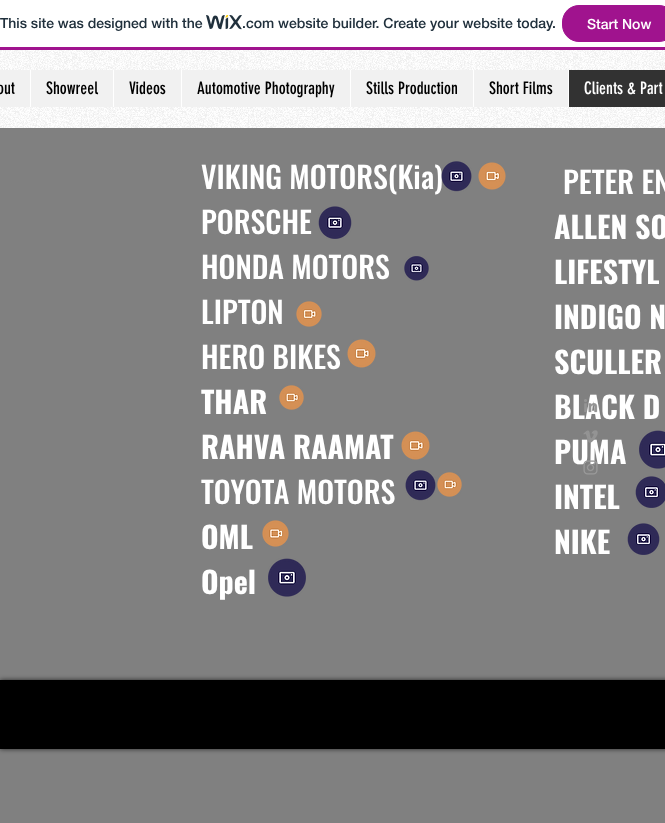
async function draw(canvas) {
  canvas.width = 665;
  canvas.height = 823;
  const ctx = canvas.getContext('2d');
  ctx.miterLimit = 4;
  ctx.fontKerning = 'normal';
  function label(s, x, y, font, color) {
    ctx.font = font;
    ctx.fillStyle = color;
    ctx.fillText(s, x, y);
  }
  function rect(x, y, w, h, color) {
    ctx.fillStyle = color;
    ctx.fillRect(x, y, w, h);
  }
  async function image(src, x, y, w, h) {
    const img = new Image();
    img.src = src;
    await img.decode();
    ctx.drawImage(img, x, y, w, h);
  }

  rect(0, 0, 665, 823, '#fff');
  rect(0, 47, 665, 3, '#a0138e');
  label('This site was designed with the', 0, 28, '500 14px "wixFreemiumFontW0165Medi"', '#20303c');
  await image('assets/img1.png', 206, 15, 36, 15);
  label('.com website builder. Create your website today.', 242, 28, '500 14px "wixFreemiumFontW0165Medi"', '#20303c');
  ctx.fillStyle = '#a0138e';
  ctx.beginPath();
  ctx.roundRect(562.5, 5.5, 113, 36, 16.5);
  ctx.fill();
  ctx.strokeStyle = '#a0138e';
  ctx.stroke();
  label('Start Now', 587, 29, '500 14px "wixFreemiumFontW0165Medi"', '#fff');
  await image('assets/img2.png', 0, 50, 665, 78);
  rect(0, 70, 568, 37, '#f1f1f1');
  label('out', -3, 94, '17px "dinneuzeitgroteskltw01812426"', '#000');
  rect(30, 70, 1, 37, '#fff');
  label('Showreel', 46, 94, '17px "dinneuzeitgroteskltw01812426"', '#000');
  rect(113, 70, 1, 37, '#fff');
  label('Videos', 129, 94, '17px "dinneuzeitgroteskltw01812426"', '#000');
  rect(181, 70, 1, 37, '#fff');
  label('Automotive Photography', 197, 94, '17px "dinneuzeitgroteskltw01812426"', '#000');
  rect(350, 70, 1, 37, '#fff');
  label('Stills Production', 366, 94, '17px "dinneuzeitgroteskltw01812426"', '#000');
  rect(473, 70, 1, 37, '#fff');
  label('Short Films', 489, 94, '17px "dinneuzeitgroteskltw01812426"', '#000');
  rect(569, 70, 96, 37, '#323232');
  rect(568, 70, 1, 37, '#fff');
  label('Clients & Part', 584, 94, '17px "dinneuzeitgroteskltw01812426"', '#fff');
  rect(0, 128, 665, 695, '#808080');
  label('VIKING MOTORS(Kia)', 201, 189, '500 30px Oswald', '#fff');
  label('PORSCHE', 201, 234, '500 30px Oswald', '#fff');
  label('HONDA MOTORS', 201, 279, '500 30px Oswald', '#fff');
  label('LIPTON', 201, 324, '500 30px Oswald', '#fff');
  label('HERO BIKES', 201, 369, '500 30px Oswald', '#fff');
  label('THAR', 201, 414, 'bold 30px Oswald', '#fff');
  label('RAHVA RAAMAT', 201, 459, 'bold 30px Oswald', '#fff');
  label('TOYOTA MOTORS', 201, 504, '500 30px Oswald', '#fff');
  label('OML', 201, 549, 'bold 30px Oswald', '#fff');
  label('Opel', 201, 594, 'bold 30px Oswald', '#fff');
  await image('assets/img3.png', 441, 161, 31, 31);
  await image('assets/img4.png', 478, 162, 28, 28);
  label('PETER EN', 563, 194, '500 30px Oswald', '#fff');
  label('ALLEN SO', 554, 239, 'bold 30px Oswald', '#fff');
  label('LIFESTYL', 554, 284, 'bold 30px Oswald', '#fff');
  label('INDIGO N', 554, 329, 'bold 30px Oswald', '#fff');
  label('SCULLER', 554, 374, 'bold 30px Oswald', '#fff');
  label('BLACK D', 554, 419, 'bold 30px Oswald', '#fff');
  label('PUMA', 554, 464, 'bold 30px Oswald', '#fff');
  label('INTEL', 554, 509, 'bold 30px Oswald', '#fff');
  label('NIKE', 554, 554, 'bold 30px Oswald', '#fff');
  await image('assets/img5.png', 318, 206, 34, 33);
  await image('assets/img6.png', 404, 256, 25, 25);
  await image('assets/img7.png', 296, 301, 26, 26);
  await image('assets/img8.png', 347, 339, 29, 29);
  await image('assets/img9.png', 279, 385, 25, 25);
  await image('assets/img8.png', 401, 431, 29, 29);
  await image('assets/img10.png', 639, 430, 26, 39);
  await image('assets/img11.png', 405, 470, 31, 31);
  await image('assets/img9.png', 437, 472, 25, 25);
  await image('assets/img12.png', 635, 476, 30, 32);
  await image('assets/img13.png', 262, 520, 27, 27);
  await image('assets/img14.png', 627, 523, 33, 32);
  await image('assets/img15.png', 268, 558, 38, 39);
  await image('assets/img16.png', 584, 399, 14, 14);
  await image('assets/img17.png', 583, 430, 15, 13);
  await image('assets/img18.png', 583, 460, 15, 15);
  ctx.fillStyle = '#000000b3';
  ctx.filter = 'blur(2.5px)';
  ctx.beginPath();
  ctx.rect(0, 680, 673, 69);
  ctx.fill();
  ctx.filter = 'none';
  rect(0, 680, 665, 69, '#000');
}

draw(document.querySelector('canvas'));
